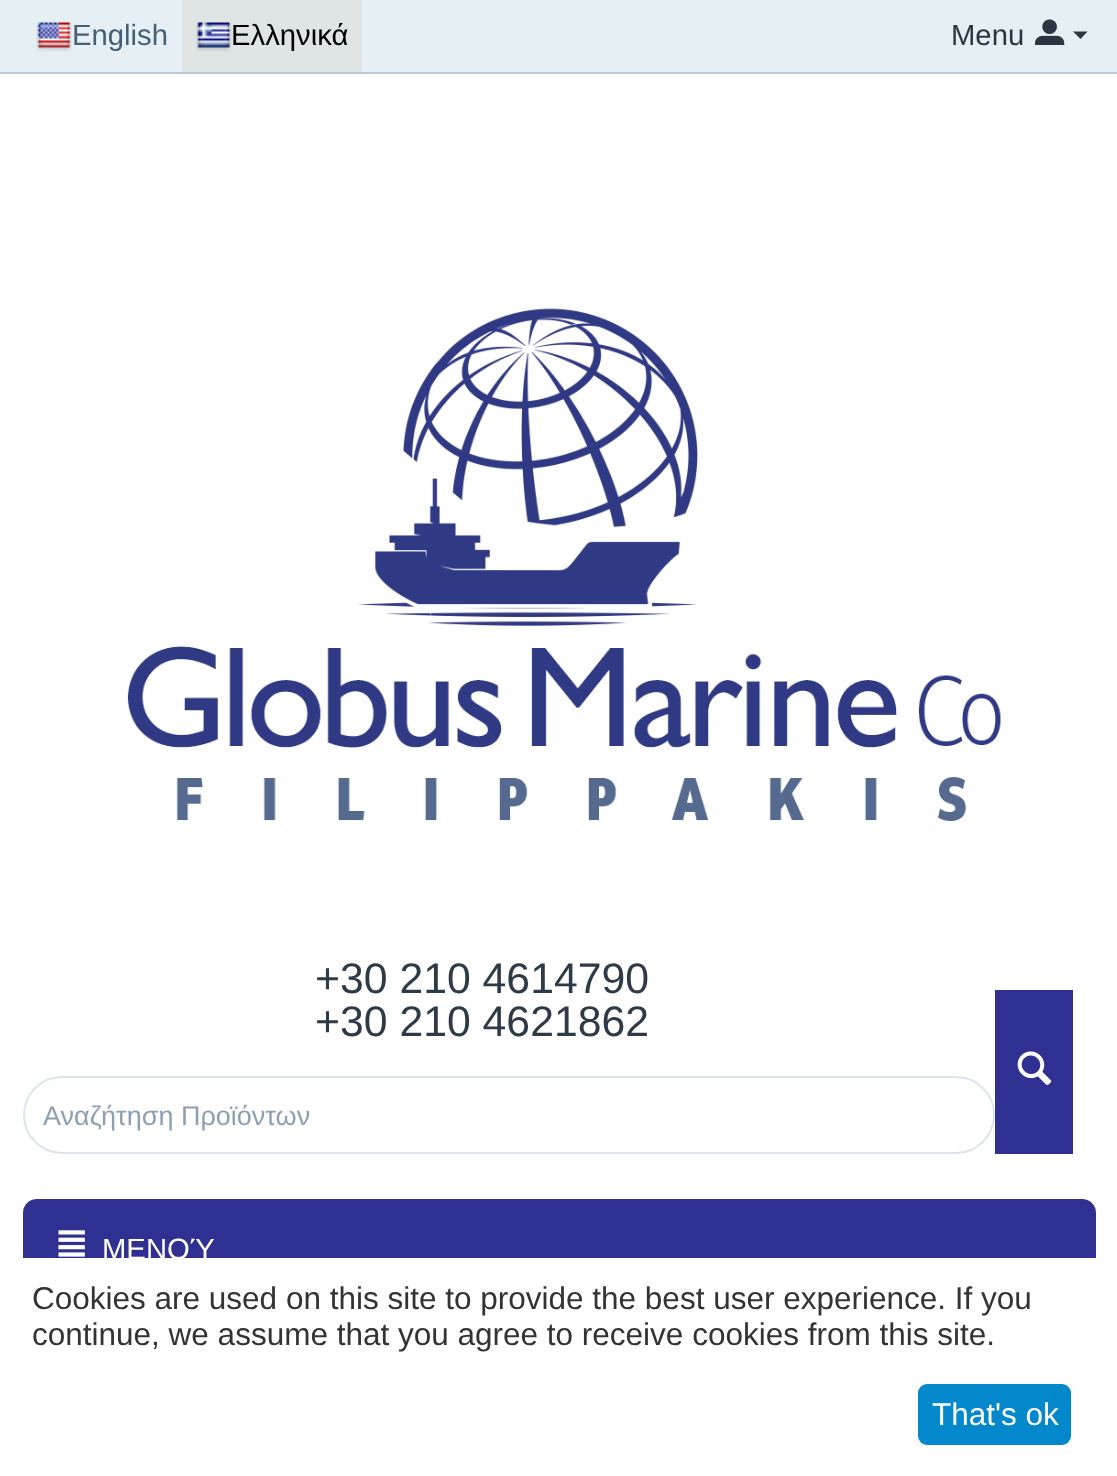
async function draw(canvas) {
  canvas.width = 1117;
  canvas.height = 1476;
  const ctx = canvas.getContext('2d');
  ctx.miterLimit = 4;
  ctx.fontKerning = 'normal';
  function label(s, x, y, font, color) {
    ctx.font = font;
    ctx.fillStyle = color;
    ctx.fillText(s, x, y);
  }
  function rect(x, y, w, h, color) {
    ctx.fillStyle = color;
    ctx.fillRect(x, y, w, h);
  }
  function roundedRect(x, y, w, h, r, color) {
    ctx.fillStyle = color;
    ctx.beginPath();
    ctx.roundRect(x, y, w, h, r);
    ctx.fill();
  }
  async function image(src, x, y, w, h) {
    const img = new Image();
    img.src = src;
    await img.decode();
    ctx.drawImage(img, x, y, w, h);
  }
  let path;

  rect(0, 0, 1117, 1476, '#fff');
  rect(0, 0, 1117, 72, '#e6eff4');
  rect(0, 72, 1117, 2, '#b1cddd');
  await image('assets/img1.png', 36, 22, 36, 30);
  label('English', 72, 45, '29.25px Arimo', '#465f73');
  rect(182, 0, 180, 72, '#dfe4e4');
  await image('assets/img2.png', 196, 22, 36, 30);
  label('Ελληνικά', 231, 45, '29.25px Arimo', '#000');
  label('Menu', 951, 45, '29.25px Arimo', '#2d3540');
  await image('assets/img3.png', 1035, 19, 30, 26);
  path = new Path2D('M1080.5 39L1073 31.5H1087.5Z');
  ctx.fill(path);
  await image('assets/img4.png', 127, 308, 874, 513);
  label('+30 210 4614790', 315, 993, '42.75px Liberation Sans', '#2e3a47');
  label('+30 210 4621862', 315, 1036, '42.75px Liberation Sans', '#2e3a47');
  ctx.beginPath();
  ctx.roundRect(24, 1077, 970, 76, 38);
  ctx.strokeStyle = '#dce3ea';
  ctx.lineWidth = 2;
  ctx.stroke();
  label('Αναζήτηση Προϊόντων', 43, 1125, '27px Arimo', '#8ca0b5');
  rect(995, 990, 78, 164, '#303092');
  await image('assets/img5.png', 1017, 1051, 35, 34);
  roundedRect(23, 1199, 1073, 104, 14, '#303092');
  await image('assets/img6.png', 58, 1230, 27, 27);
  label('ΜΕΝΟΎ', 102, 1259, '29.25px Liberation Sans', '#fff');
  rect(23, 1258, 1073, 45, '#fff');
  label('Cookies are used on this site to provide the best user experience. If you', 32, 1309, '31.5px Arimo', '#333');
  label('continue, we assume that you agree to receive cookies from this site.', 32, 1345, '31.5px Arimo', '#333');
  roundedRect(918, 1384, 153, 61, 9, '#0388cc');
  label('That\'s ok', 932, 1425, '31.5px Arimo', '#fff');
}

draw(document.querySelector('canvas'));
